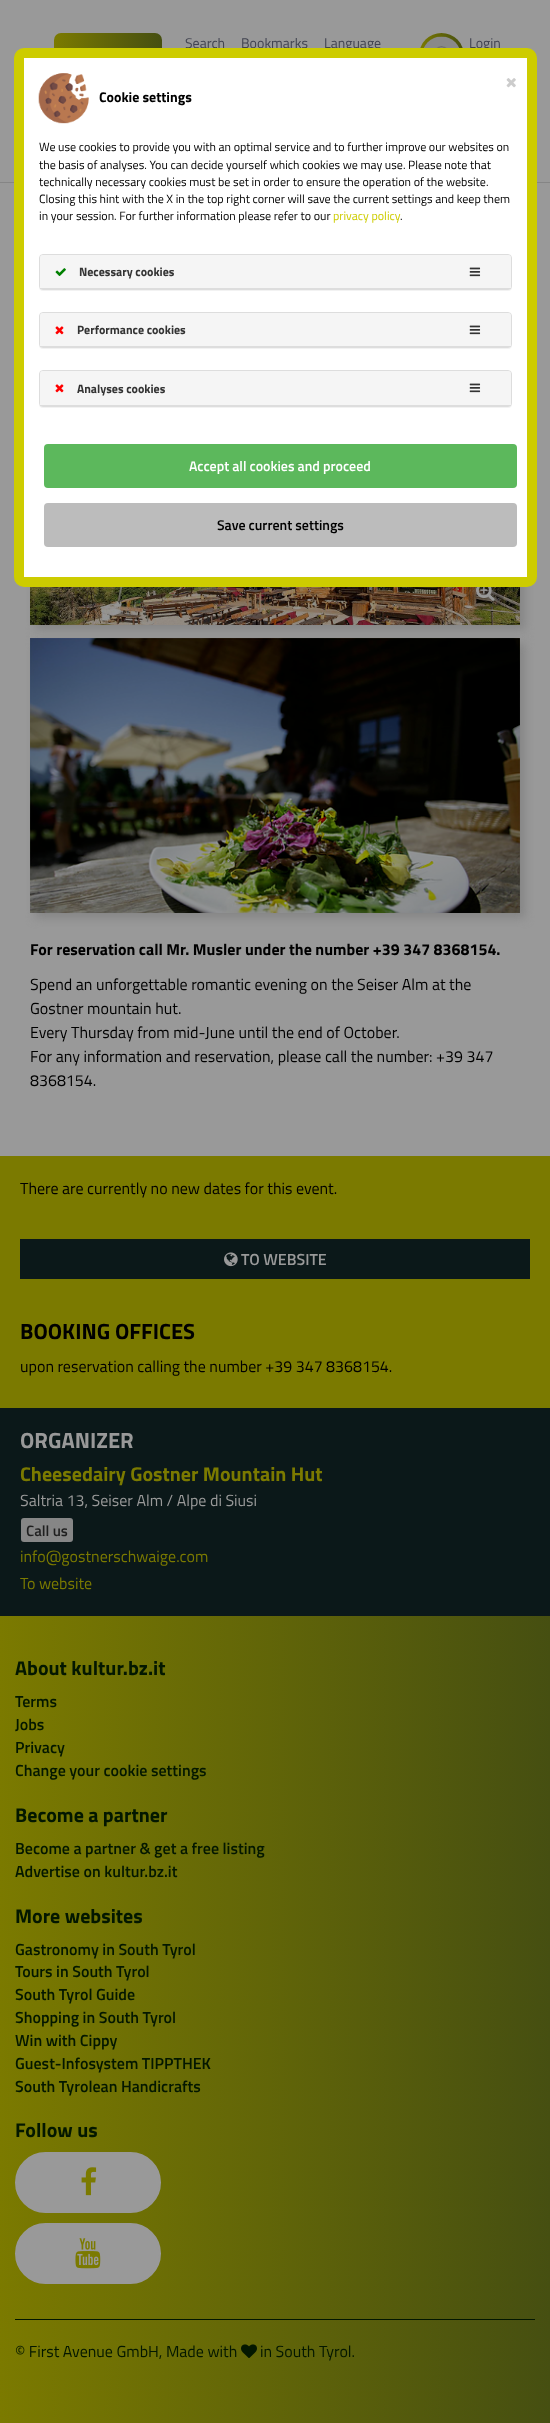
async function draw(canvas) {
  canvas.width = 550;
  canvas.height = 2423;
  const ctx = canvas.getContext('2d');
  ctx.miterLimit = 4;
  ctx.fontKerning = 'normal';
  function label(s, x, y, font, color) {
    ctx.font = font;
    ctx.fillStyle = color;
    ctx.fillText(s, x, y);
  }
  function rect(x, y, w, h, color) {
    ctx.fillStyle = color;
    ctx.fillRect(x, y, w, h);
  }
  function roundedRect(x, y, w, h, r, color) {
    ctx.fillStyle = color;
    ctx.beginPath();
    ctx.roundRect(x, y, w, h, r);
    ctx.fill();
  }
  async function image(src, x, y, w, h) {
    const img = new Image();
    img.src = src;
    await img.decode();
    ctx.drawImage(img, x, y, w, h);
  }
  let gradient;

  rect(0, 0, 550, 2423, '#999');
  rect(0, 182, 550, 1, '#858585');
  gradient = ctx.createLinearGradient(54, 56, 162, 56);
  gradient.addColorStop(0, '#7b7a00');
  gradient.addColorStop(1, '#464f11');
  ctx.fillStyle = gradient;
  ctx.beginPath();
  ctx.roundRect(54, 33, 108, 45, 7);
  ctx.fill();
  label('Search', 185, 48, '14px Titillium Web', '#414350');
  label('Bookmarks', 241, 48, '14px Titillium Web', '#414350');
  label('Language', 324, 48, '14px Titillium Web', '#414350');
  gradient = ctx.createLinearGradient(419, 56, 464, 56);
  gradient.addColorStop(0, '#7b7a00');
  gradient.addColorStop(1, '#464f11');
  ctx.fillStyle = gradient;
  ctx.beginPath();
  ctx.arc(441.5, 55.5, 22.5, 0, 2 * Math.PI);
  ctx.fill();
  await image('assets/img1.png', 423, 36, 37, 12);
  label('Login', 469, 48, '14px Titillium Web', '#414350');
  ctx.fillStyle = '#858585';
  ctx.filter = 'blur(5px)';
  ctx.beginPath();
  ctx.rect(35, 355, 490, 275);
  ctx.fill();
  ctx.filter = 'none';
  await image('assets/img7.png', 30, 587, 490, 38);
  roundedRect(466, 572, 39, 38, 19, '#00000033');
  ctx.fillStyle = '#fff';
  ctx.beginPath();
  ctx.roundRect(19, 53, 513, 529, 5);
  ctx.fill();
  ctx.strokeStyle = '#cdcc00';
  ctx.lineWidth = 10;
  ctx.stroke();
  await image('assets/img2.png', 506, 78, 10, 10);
  await image('assets/img3.png', 38, 73, 51, 51);
  label('Cookie settings', 99, 102, 'bold 14px Titillium Web', '#000');
  label('We use cookies to provide you with an optimal service and to further improve our websites on', 39, 151, '12px Titillium Web', '#000');
  label('the basis of analyses. You can decide yourself which cookies we may use. Please note that', 39, 169, '12px Titillium Web', '#000');
  label('technically necessary cookies must be set in order to ensure the operation of the website.', 39, 186, '12px Titillium Web', '#000');
  label('Closing this hint with the X in the top right corner will save the current settings and keep them', 39, 203, '12px Titillium Web', '#000');
  label('in your session. For further information please refer to our', 39, 220, '12px Titillium Web', '#000');
  label('privacy policy', 333, 220, '12px Titillium Web', '#cdcc00');
  label('.', 400, 220, '12px Titillium Web', '#000');
  ctx.fillStyle = '#0000000d';
  ctx.filter = 'blur(0.5px)';
  ctx.beginPath();
  ctx.roundRect(39, 255, 473, 36, 4);
  ctx.fill();
  ctx.filter = 'none';
  ctx.beginPath();
  ctx.roundRect(39.5, 254.5, 472, 35, 3.5);
  ctx.strokeStyle = '#ddd';
  ctx.lineWidth = 1;
  ctx.stroke();
  ctx.fillStyle = '#f5f5f5';
  ctx.beginPath();
  ctx.roundRect(40, 255, 471, 34, [3, 3, 0, 0]);
  ctx.fill();
  rect(40, 288, 471, 1, '#ddd');
  await image('assets/img4.png', 55, 268, 11, 8);
  label('Necessary cookies', 79, 276, 'bold 12px Titillium Web', '#333');
  await image('assets/img5.png', 469, 267, 12, 10);
  ctx.fillStyle = '#0000000d';
  ctx.filter = 'blur(0.5px)';
  ctx.beginPath();
  ctx.roundRect(39, 313, 473, 36, 4);
  ctx.fill();
  ctx.filter = 'none';
  ctx.beginPath();
  ctx.roundRect(39.5, 312.5, 472, 35, 3.5);
  ctx.stroke();
  ctx.fillStyle = '#f5f5f5';
  ctx.beginPath();
  ctx.roundRect(40, 313, 471, 34, [3, 3, 0, 0]);
  ctx.fill();
  rect(40, 346, 471, 1, '#ddd');
  await image('assets/img6.png', 55, 326, 9, 9);
  label('Performance cookies', 77, 334, 'bold 12px Titillium Web', '#333');
  await image('assets/img5.png', 469, 325, 12, 10);
  ctx.fillStyle = '#0000000d';
  ctx.filter = 'blur(0.5px)';
  ctx.beginPath();
  ctx.roundRect(39, 371, 473, 37, 4);
  ctx.fill();
  ctx.filter = 'none';
  ctx.beginPath();
  ctx.roundRect(39.5, 370.5, 472, 36, 3.5);
  ctx.stroke();
  ctx.fillStyle = '#f5f5f5';
  ctx.beginPath();
  ctx.roundRect(40, 371, 471, 35, [3, 3, 0, 0]);
  ctx.fill();
  rect(40, 405, 471, 1, '#ddd');
  await image('assets/img6.png', 55, 384, 9, 9);
  label('Analyses cookies', 77, 393, 'bold 12px Titillium Web', '#333');
  await image('assets/img5.png', 469, 383, 12, 10);
  roundedRect(44, 444, 473, 44, 4, '#5cb85c');
  label('Accept all cookies and proceed', 189, 471, '600 14px Titillium Web', '#fff');
  roundedRect(44, 503, 473, 44, 4, '#bcbcbc');
  label('Save current settings', 217, 530, '600 14px Titillium Web', '#000');
  await image('assets/img8.png', 476, 587, 19, 14);
  ctx.fillStyle = '#858585';
  ctx.filter = 'blur(5px)';
  ctx.beginPath();
  ctx.rect(35, 643, 490, 275);
  ctx.fill();
  ctx.filter = 'none';
  await image('assets/img9.png', 30, 638, 490, 275);
  label('For reservation call Mr. Musler under the number +39 347 8368154.', 30, 955, 'bold 16px Titillium Web', '#000');
  label('Spend an unforgettable romantic evening on the Seiser Alm at the', 30, 990, '16px Titillium Web', '#000');
  label('Gostner mountain hut.', 30, 1014, '16px Titillium Web', '#000');
  label('Every Thursday from mid-June until the end of October.', 30, 1038, '16px Titillium Web', '#000');
  label('For any information and reservation, please call the number: +39 347', 30, 1062, '16px Titillium Web', '#000');
  label('8368154.', 30, 1086, '16px Titillium Web', '#000');
  rect(0, 1156, 550, 252, '#7b7a00');
  label('There are currently no new dates for this event.', 20, 1194, '16px Titillium Web', '#000');
  rect(20, 1239, 510, 40, '#0b1819');
  await image('assets/img10.png', 224, 1252, 14, 15);
  label('TO WEBSITE', 241, 1265, '600 16px Titillium Web', '#999');
  label('BOOKING OFFICES', 20, 1339, 'bold 22px Titillium Web', '#000');
  label('upon reservation calling the number +39 347 8368154.', 20, 1372, '16px Titillium Web', '#000');
  rect(0, 1408, 550, 208, '#0b1819');
  label('ORGANIZER', 20, 1448, 'bold 22px Titillium Web', '#999');
  label('Cheesedairy Gostner Mountain Hut', 20, 1481, 'bold 20px Titillium Web', '#7b7a00');
  label('Saltria 13, Seiser Alm / Alpe di Siusi', 20, 1506, '16px Titillium Web', '#999');
  roundedRect(21, 1518, 52, 24, 3, '#868686');
  label('Call us', 26, 1536, '600 15px Titillium Web', '#1f1f1f');
  label('info@gostnerschwaige.com', 20, 1562, '16px Titillium Web', '#7b7a00');
  label('To website', 20, 1589, '16px Titillium Web', '#7b7a00');
  gradient = ctx.createLinearGradient(0, 2020, 550, 2020);
  gradient.addColorStop(0, '#7b7a00');
  gradient.addColorStop(1, '#464f11');
  ctx.fillStyle = gradient;
  ctx.fillRect(0, 1616, 550, 807);
  label('About kultur.bz.it', 15, 1675, 'bold 20px Titillium Web', '#031700');
  label('Terms', 15, 1707, '600 16px Titillium Web', '#031700');
  label('Jobs', 15, 1730, '600 16px Titillium Web', '#031700');
  label('Privacy', 15, 1753, '600 16px Titillium Web', '#031700');
  label('Change your cookie settings', 15, 1776, '600 16px Titillium Web', '#031700');
  label('Become a partner', 15, 1822, 'bold 20px Titillium Web', '#031700');
  label('Become a partner & get a free listing', 15, 1854, '600 16px Titillium Web', '#031700');
  label('Advertise on kultur.bz.it', 15, 1877, '600 16px Titillium Web', '#031700');
  label('More websites', 15, 1923, 'bold 20px Titillium Web', '#031700');
  label('Gastronomy in South Tyrol', 15, 1955, '600 16px Titillium Web', '#031700');
  label('Tours in South Tyrol', 15, 1977, '600 16px Titillium Web', '#031700');
  label('South Tyrol Guide', 15, 2000, '600 16px Titillium Web', '#031700');
  label('Shopping in South Tyrol', 15, 2023, '600 16px Titillium Web', '#031700');
  label('Win with Cippy', 15, 2046, '600 16px Titillium Web', '#031700');
  label('Guest-Infosystem TIPPTHEK', 15, 2069, '600 16px Titillium Web', '#031700');
  label('South Tyrolean Handicrafts', 15, 2092, '600 16px Titillium Web', '#031700');
  label('Follow us', 15, 2137, 'bold 20px Titillium Web', '#031700');
  ctx.fillStyle = '#999';
  ctx.beginPath();
  ctx.roundRect(16, 2153, 144, 59, 29.5);
  ctx.fill();
  ctx.strokeStyle = '#999';
  ctx.lineWidth = 2;
  ctx.stroke();
  await image('assets/img11.png', 81, 2167, 16, 29);
  ctx.beginPath();
  ctx.roundRect(16, 2224, 144, 59, 29.5);
  ctx.fill();
  ctx.stroke();
  await image('assets/img12.png', 75, 2238, 26, 31);
  rect(15, 2319, 520, 1, '#031700');
  label('© First Avenue GmbH, Made with', 15, 2357, '16px Titillium Web', '#031700');
  await image('assets/img13.png', 241, 2344, 16, 14);
  label('in South Tyrol.', 260, 2357, '16px Titillium Web', '#031700');
}

draw(document.querySelector('canvas'));
